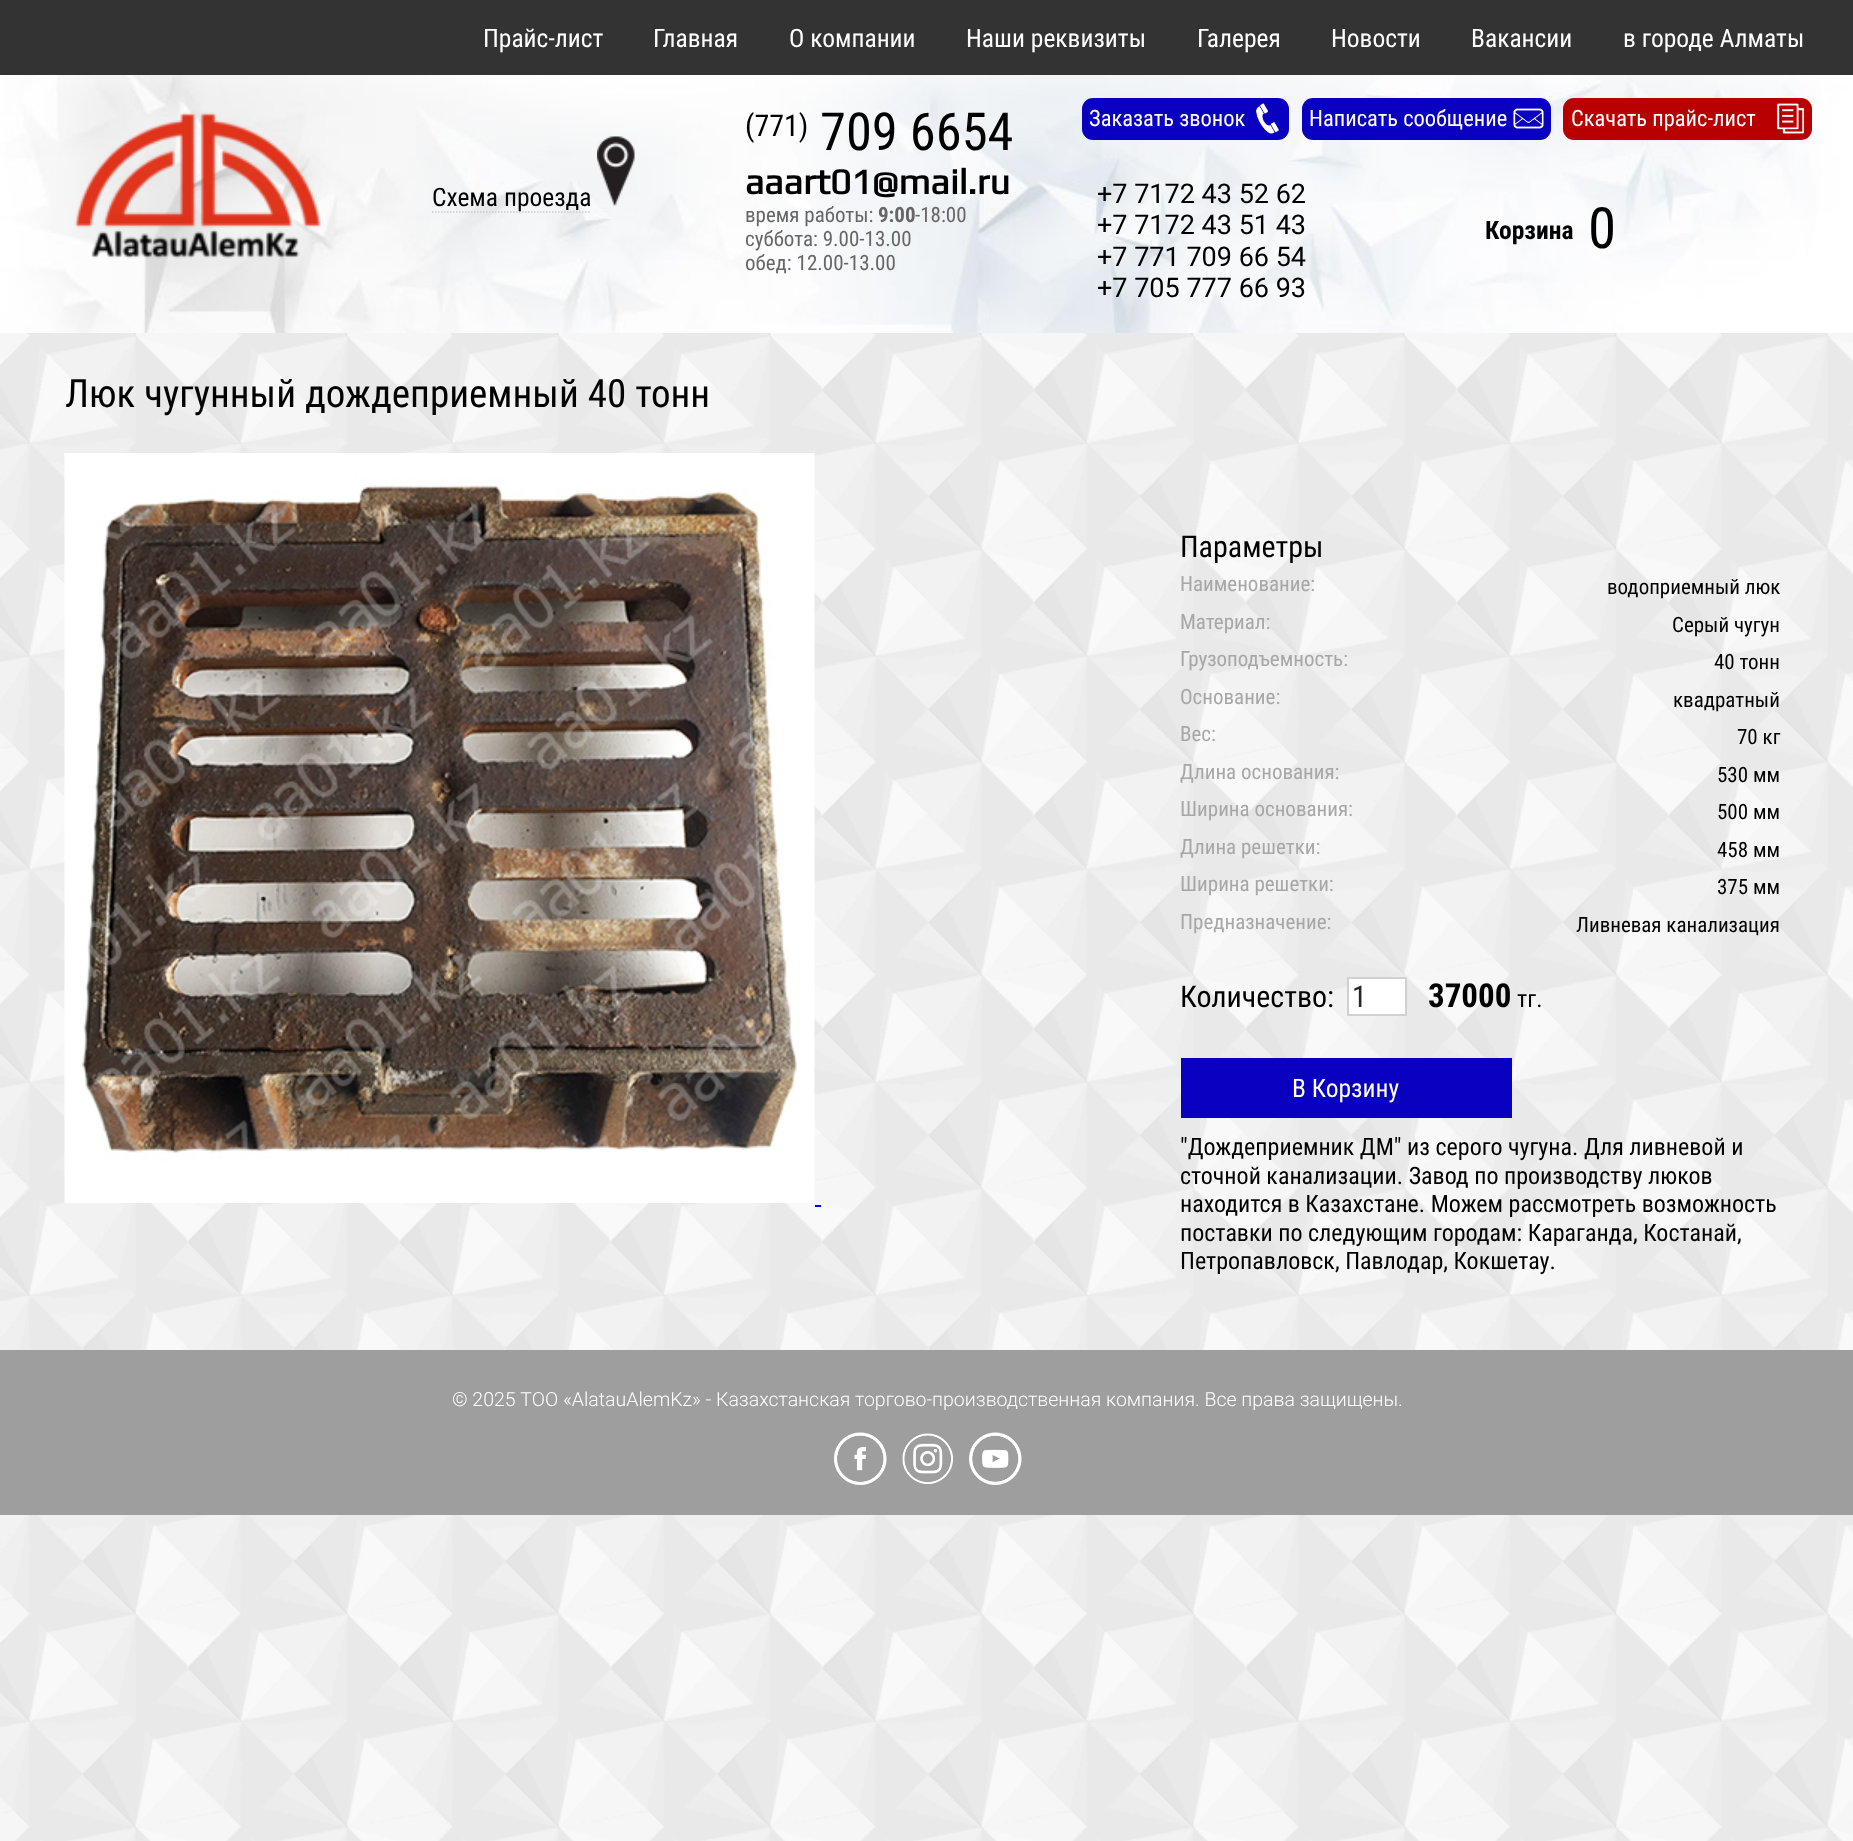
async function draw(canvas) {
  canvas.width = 1853;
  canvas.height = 1841;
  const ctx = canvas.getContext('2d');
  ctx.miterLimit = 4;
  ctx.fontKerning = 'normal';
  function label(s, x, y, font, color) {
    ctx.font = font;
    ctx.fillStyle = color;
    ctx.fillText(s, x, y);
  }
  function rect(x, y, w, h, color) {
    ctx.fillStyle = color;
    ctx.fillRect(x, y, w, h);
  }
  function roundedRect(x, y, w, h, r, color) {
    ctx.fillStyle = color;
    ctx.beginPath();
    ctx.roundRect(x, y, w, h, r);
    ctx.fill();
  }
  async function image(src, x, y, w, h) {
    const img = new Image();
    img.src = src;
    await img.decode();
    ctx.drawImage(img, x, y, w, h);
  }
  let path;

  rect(0, 0, 1853, 1841, '#fff');
  await image('assets/img1.png', 0, 333, 1853, 1508);
  rect(0, 0, 1853, 75, '#333');
  label('Прайс-лист', 483, 47, '25.5px Roboto Condensed', '#fff');
  label('Главная', 653, 47, '25.5px Roboto Condensed', '#fff');
  label('О компании', 789, 47, '25.5px Roboto Condensed', '#fff');
  label('Наши реквизиты', 966, 47, '25.5px Roboto Condensed', '#fff');
  label('Галерея', 1197, 47, '25.5px Roboto Condensed', '#fff');
  label('Новости', 1331, 47, '25.5px Roboto Condensed', '#fff');
  label('Вакансии', 1471, 47, '25.5px Roboto Condensed', '#fff');
  label('в городе Алматы', 1623, 47, '25.5px Roboto Condensed', '#fff');
  await image('assets/img2.png', 0, 75, 1853, 258);
  await image('assets/img3.png', 74, 112, 247, 147);
  path = new Path2D('M432 212H591');
  ctx.strokeStyle = '#ccc';
  ctx.lineWidth = 1.5;
  ctx.setLineDash([1.5, 1.5]);
  ctx.stroke(path);
  label('Схема проезда', 432, 206, '25.5px Roboto Condensed', '#000');
  await image('assets/img4.png', 597, 136, 38, 70);
  label('(771)', 745, 136, '30px Roboto Condensed', '#000');
  label('709 6654', 820, 150, '52.5px Roboto Condensed', '#000');
  label('aaart01@mail.ru', 745, 194, 'bold 36px Play', '#000');
  label('время работы:', 745, 222, '21px Roboto Condensed', '#666');
  label('9:00', 878, 222, 'bold 21px Roboto Condensed', '#666');
  label('-18:00', 915, 222, '21px Roboto Condensed', '#666');
  label('суббота: 9.00-13.00', 745, 246, '21px Roboto Condensed', '#666');
  label('обед: 12.00-13.00', 745, 270, '21px Roboto Condensed', '#666');
  roundedRect(1082, 98, 207, 42, 11, '#0900c0');
  await image('assets/img5.png', 1256, 103, 23, 31);
  label('Заказать звонок', 1089, 126, '22.5px Roboto Condensed', '#fff');
  roundedRect(1302, 98, 249, 42, 11, '#0900c0');
  await image('assets/img6.png', 1513, 108, 31, 21);
  label('Написать сообщение', 1309, 126, '22.5px Roboto Condensed', '#fff');
  roundedRect(1563, 98, 249, 42, 11, '#b80000');
  await image('assets/img7.png', 1777, 103, 28, 31);
  label('Скачать прайс-лист', 1571, 126, '22.5px Roboto Condensed', '#fff');
  label('+7 7172 43 52 62', 1097, 203, '27px Roboto', '#000');
  label('+7 7172 43 51 43', 1097, 234, '27px Roboto', '#000');
  label('+7 771 709 66 54', 1097, 266, '27px Roboto', '#000');
  label('+7 705 777 66 93', 1097, 297, '27px Roboto', '#000');
  label('Корзина', 1485, 239, 'bold 25.5px Roboto Condensed', '#000');
  label('0', 1588, 248, '57px Roboto Condensed', '#000');
  label('Люк чугунный дождеприемный 40 тонн', 65, 407, '39px Roboto Condensed', '#000');
  await image('assets/img8.png', 64, 453, 751, 750);
  rect(815, 1205, 6, 2, '#00e');
  label('Параметры', 1180, 557, '30px Roboto Condensed', '#000');
  label('Наименование:', 1180, 591, '21px Roboto Condensed', '#a8a6a6');
  label('водоприемный люк', 1607, 594, '21px Roboto Condensed', '#000');
  label('Материал:', 1180, 629, '21px Roboto Condensed', '#a8a6a6');
  label('Серый чугун', 1672, 632, '21px Roboto Condensed', '#000');
  label('Грузоподъемность:', 1180, 666, '21px Roboto Condensed', '#a8a6a6');
  label('40 тонн', 1714, 669, '21px Roboto Condensed', '#000');
  label('Основание:', 1180, 704, '21px Roboto Condensed', '#a8a6a6');
  label('квадратный', 1673, 707, '21px Roboto Condensed', '#000');
  label('Вес:', 1180, 741, '21px Roboto Condensed', '#a8a6a6');
  label('70 кг', 1737, 744, '21px Roboto Condensed', '#000');
  label('Длина основания:', 1180, 779, '21px Roboto Condensed', '#a8a6a6');
  label('530 мм', 1717, 782, '21px Roboto Condensed', '#000');
  label('Ширина основания:', 1180, 816, '21px Roboto Condensed', '#a8a6a6');
  label('500 мм', 1717, 819, '21px Roboto Condensed', '#000');
  label('Длина решетки:', 1180, 854, '21px Roboto Condensed', '#a8a6a6');
  label('458 мм', 1717, 857, '21px Roboto Condensed', '#000');
  label('Ширина решетки:', 1180, 891, '21px Roboto Condensed', '#a8a6a6');
  label('375 мм', 1717, 894, '21px Roboto Condensed', '#000');
  label('Предназначение:', 1180, 929, '21px Roboto Condensed', '#a8a6a6');
  label('Ливневая канализация', 1576, 932, '21px Roboto Condensed', '#000');
  label('Количество:', 1180, 1007, '30px Roboto Condensed', '#000');
  ctx.fillStyle = '#fff';
  ctx.beginPath();
  ctx.rect(1348, 978, 58, 37);
  ctx.fill();
  ctx.strokeStyle = '#d1d1d1';
  ctx.lineWidth = 2;
  ctx.setLineDash([]);
  ctx.stroke();
  label('1', 1352, 1007, '30px Roboto Condensed', '#272727');
  label('37000', 1428, 1007, 'bold 33px Roboto Condensed', '#000');
  label('тг.', 1517, 1007, '24px Roboto Condensed', '#000');
  rect(1181, 1058, 331, 60, '#0900c0');
  label('В Корзину', 1292, 1097, '25.5px Roboto Condensed', '#fff');
  label('"Дождеприемник ДМ" из серого чугуна. Для ливневой и', 1180, 1155, '24px Roboto Condensed', '#000');
  label('сточной канализации. Завод по производству люков', 1180, 1184, '24px Roboto Condensed', '#000');
  label('находится в Казахстане. Можем рассмотреть возможность', 1180, 1212, '24px Roboto Condensed', '#000');
  label('поставки по следующим городам: Караганда, Костанай,', 1180, 1241, '24px Roboto Condensed', '#000');
  label('Петропавловск, Павлодар, Кокшетау.', 1180, 1269, '24px Roboto Condensed', '#000');
  rect(0, 1350, 1853, 165, '#9e9e9e');
  label('© 2025 ТОО «AlatauAlemKz» - Казахстанская торгово-производственная компания. Все права защищены.', 452, 1406, '300 19.5px Roboto', '#fff');
  await image('assets/img9.png', 834, 1432, 53, 53);
  await image('assets/img10.png', 902, 1433, 51, 51);
  await image('assets/img11.png', 969, 1432, 53, 53);
}

draw(document.querySelector('canvas'));
